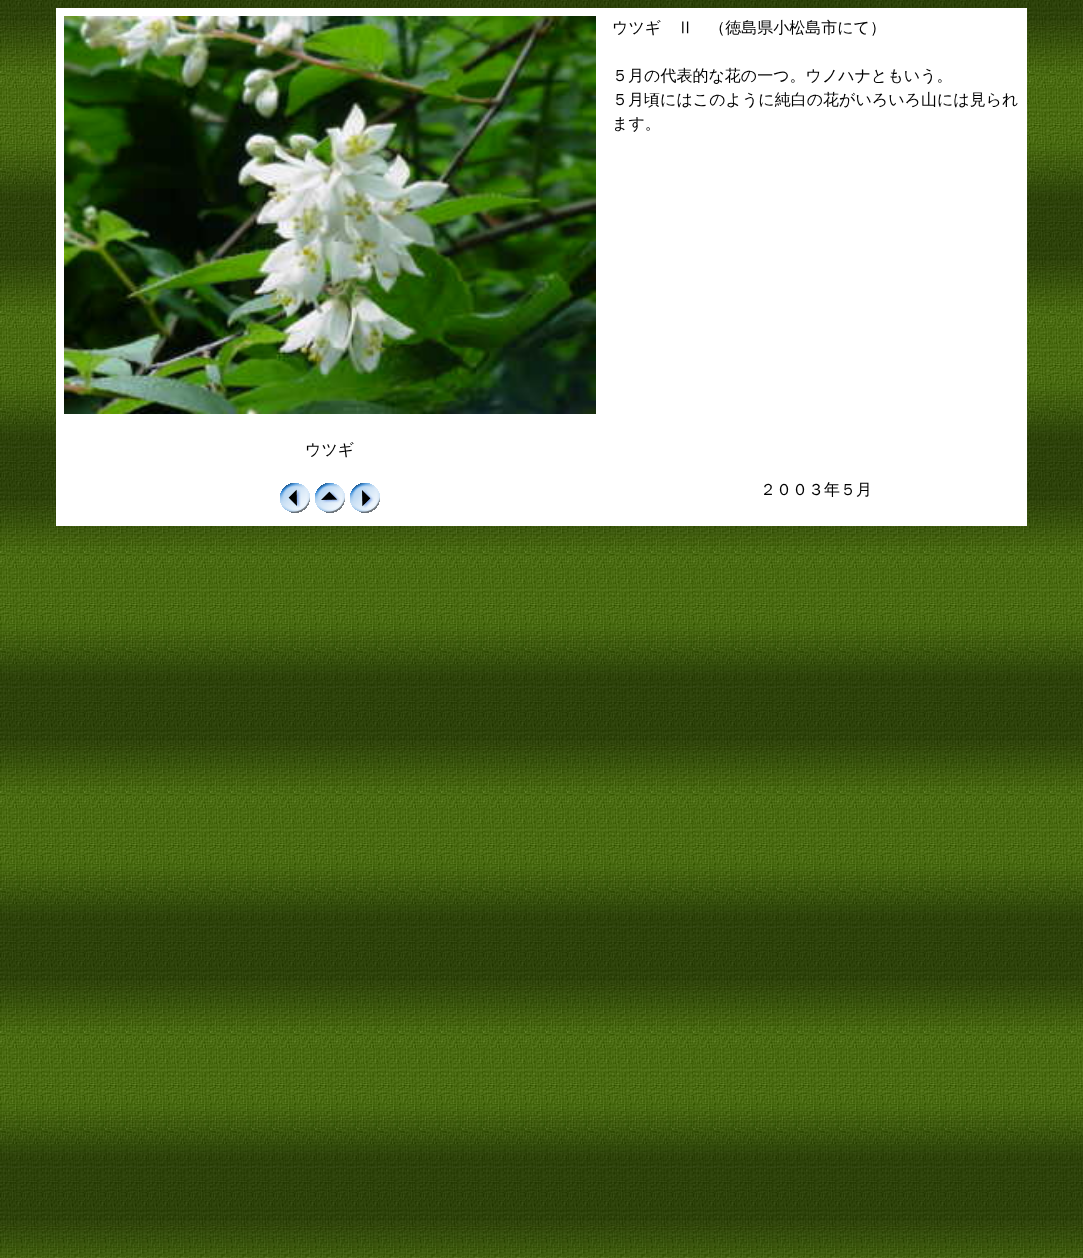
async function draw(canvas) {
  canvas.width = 1083;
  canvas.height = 1258;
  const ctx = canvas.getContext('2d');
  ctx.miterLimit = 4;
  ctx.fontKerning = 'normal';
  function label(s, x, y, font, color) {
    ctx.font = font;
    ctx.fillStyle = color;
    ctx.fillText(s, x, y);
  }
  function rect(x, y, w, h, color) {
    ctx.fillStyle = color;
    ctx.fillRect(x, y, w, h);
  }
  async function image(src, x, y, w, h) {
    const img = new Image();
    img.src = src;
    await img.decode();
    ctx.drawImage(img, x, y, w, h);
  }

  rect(0, 0, 1083, 1258, '#fff');
  await image('assets/img1.png', 0, 0, 1083, 1258);
  rect(56, 8, 971, 518, '#fff');
  label('ウツギ　Ⅱ　（徳島県小松島市にて）', 612, 33, '500 16px WenQuanYi Zen Hei', '#000');
  label('５月の代表的な花の一つ。ウノハナともいう。', 612, 81, '500 16px WenQuanYi Zen Hei', '#000');
  label('５月頃にはこのように純白の花がいろいろ山には見られ', 612, 105, '500 16px WenQuanYi Zen Hei', '#000');
  label('ます。', 612, 129, '500 16px WenQuanYi Zen Hei', '#000');
  await image('assets/img2.png', 64, 16, 532, 398);
  label('ウツギ', 305, 455, '500 16px WenQuanYi Zen Hei', '#000');
  await image('assets/img3.png', 280, 483, 30, 30);
  await image('assets/img4.png', 315, 483, 30, 30);
  await image('assets/img5.png', 350, 483, 30, 30);
  label('２００３年５月', 760, 495, '500 16px WenQuanYi Zen Hei', '#000');
}

draw(document.querySelector('canvas'));
